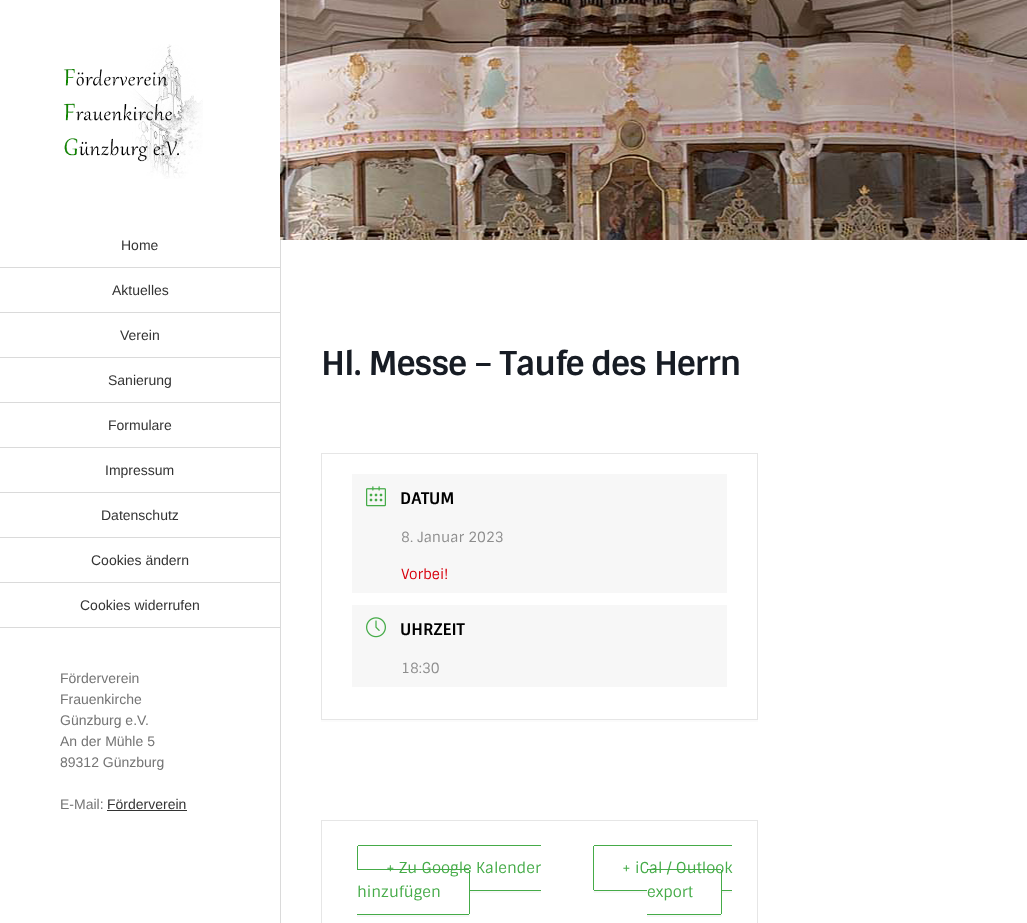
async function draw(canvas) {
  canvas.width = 1027;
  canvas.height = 923;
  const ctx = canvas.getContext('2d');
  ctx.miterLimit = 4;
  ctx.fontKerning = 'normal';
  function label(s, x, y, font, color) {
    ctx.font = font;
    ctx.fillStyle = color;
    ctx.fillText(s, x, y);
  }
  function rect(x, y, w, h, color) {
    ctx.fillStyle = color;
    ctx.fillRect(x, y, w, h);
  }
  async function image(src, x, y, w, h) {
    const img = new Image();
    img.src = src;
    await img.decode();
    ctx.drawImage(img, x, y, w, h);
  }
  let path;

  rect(0, 0, 1027, 923, '#fff');
  await image('assets/img1.png', 280, 0, 747, 240);
  await image('assets/img2.png', 63, 44, 140, 135);
  rect(0, 267, 280, 1, '#dadada');
  label('Home', 121, 250, '14px Liberation Sans', '#333');
  rect(0, 312, 280, 1, '#dadada');
  label('Aktuelles', 112, 295, '14px Liberation Sans', '#333');
  rect(0, 357, 280, 1, '#dadada');
  label('Verein', 120, 340, '14px Liberation Sans', '#333');
  rect(0, 402, 280, 1, '#dadada');
  label('Sanierung', 108, 385, '14px Liberation Sans', '#333');
  rect(0, 447, 280, 1, '#dadada');
  label('Formulare', 108, 430, '14px Liberation Sans', '#333');
  rect(0, 492, 280, 1, '#dadada');
  label('Impressum', 105, 475, '14px Liberation Sans', '#333');
  rect(0, 537, 280, 1, '#dadada');
  label('Datenschutz', 101, 520, '14px Liberation Sans', '#333');
  rect(0, 582, 280, 1, '#dadada');
  label('Cookies ändern', 91, 565, '14px Liberation Sans', '#333');
  rect(0, 627, 280, 1, '#dadada');
  label('Cookies widerrufen', 80, 610, '14px Liberation Sans', '#333');
  label('Förderverein', 60, 683, '14px Liberation Sans', '#747474');
  label('Frauenkirche', 60, 704, '14px Liberation Sans', '#747474');
  label('Günzburg e.V.', 60, 725, '14px Liberation Sans', '#747474');
  label('An der Mühle 5', 60, 746, '14px Liberation Sans', '#747474');
  label('89312 Günzburg', 60, 767, '14px Liberation Sans', '#747474');
  label('E-Mail:', 60, 809, '14px Liberation Sans', '#747474');
  label('Förderverein', 107, 809, '14px Liberation Sans', '#333');
  rect(107, 810, 80, 1, '#333');
  rect(280, 240, 1, 683, '#dadada');
  ctx.letterSpacing = '-1px';
  label('Hl. Messe – Taufe des Herrn', 321, 375, 'bold 33px Sintony', '#171c24');
  rect(321, 720, 437, 2, '#fbfbfb');
  ctx.strokeStyle = '#e6e6e6';
  ctx.strokeRect(321.5, 453.5, 436, 266);
  rect(352, 474, 375, 119, '#f7f7f7');
  await image('assets/img3.png', 366, 486, 20, 21);
  ctx.letterSpacing = '0px';
  label('DATUM', 400, 504, 'bold 16px Sintony', '#000');
  label('8. Januar 2023', 401, 542, '14px Sintony', '#8d8d8d');
  label('Vorbei!', 401, 579, '14px Sintony', '#d8000c');
  rect(352, 605, 375, 82, '#f7f7f7');
  await image('assets/img4.png', 366, 617, 20, 21);
  label('UHRZEIT', 400, 635, 'bold 16px Sintony', '#000');
  label('18:30', 401, 673, '14px Sintony', '#8d8d8d');
  ctx.strokeRect(321.5, 820.5, 436, 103);
  ctx.fillStyle = '#f7f7f7';
  path = new Path2D('M357 889C357 891 357 893 359 893H541V891H359C358 891 357 890 357 889Z');
  ctx.fill(path);
  path = new Path2D('M357 915V917H468C469 917 470 916 470 915V913C470 914 469 915 468 915Z');
  ctx.fill(path);
  ctx.fillStyle = '#fff';
  ctx.beginPath();
  ctx.roundRect(357, 869, 113, 46, [0, 2, 2, 0]);
  ctx.fill();
  rect(357, 869, 112, 1, '#45ab48');
  rect(469, 870, 1, 44, '#45ab48');
  label('+ Zu Google Kalender', 386, 873, '15px Sintony', '#45ab48');
  rect(358, 845, 183, 1, '#45ab48');
  rect(357, 846, 1, 23, '#45ab48');
  label('hinzufügen', 357, 897, '15px Sintony', '#45ab48');
  rect(470, 890, 71, 1, '#45ab48');
  rect(357, 914, 112, 1, '#45ab48');
  ctx.fillStyle = '#f7f7f7';
  path = new Path2D('M593 889C593 890 593 892 594 893H732V891H595L593 890Z');
  ctx.fill(path);
  rect(594, 890, 138, 1, '#45ab48');
  ctx.fillStyle = '#f7f7f7';
  path = new Path2D('M647 915V917H720C721 917 722 916 722 915V913C722 914 721 915 720 915Z');
  ctx.fill(path);
  ctx.fillStyle = '#fff';
  ctx.beginPath();
  ctx.roundRect(647, 869, 75, 46, [0, 2, 2, 0]);
  ctx.fill();
  rect(647, 869, 74, 1, '#45ab48');
  rect(721, 870, 1, 44, '#45ab48');
  label('+ iCal / Outlook', 622, 873, '15px Sintony', '#45ab48');
  rect(594, 845, 138, 1, '#45ab48');
  rect(593, 846, 1, 44, '#45ab48');
  label('export', 647, 897, '15px Sintony', '#45ab48');
  rect(647, 914, 74, 1, '#45ab48');
}

draw(document.querySelector('canvas'));
